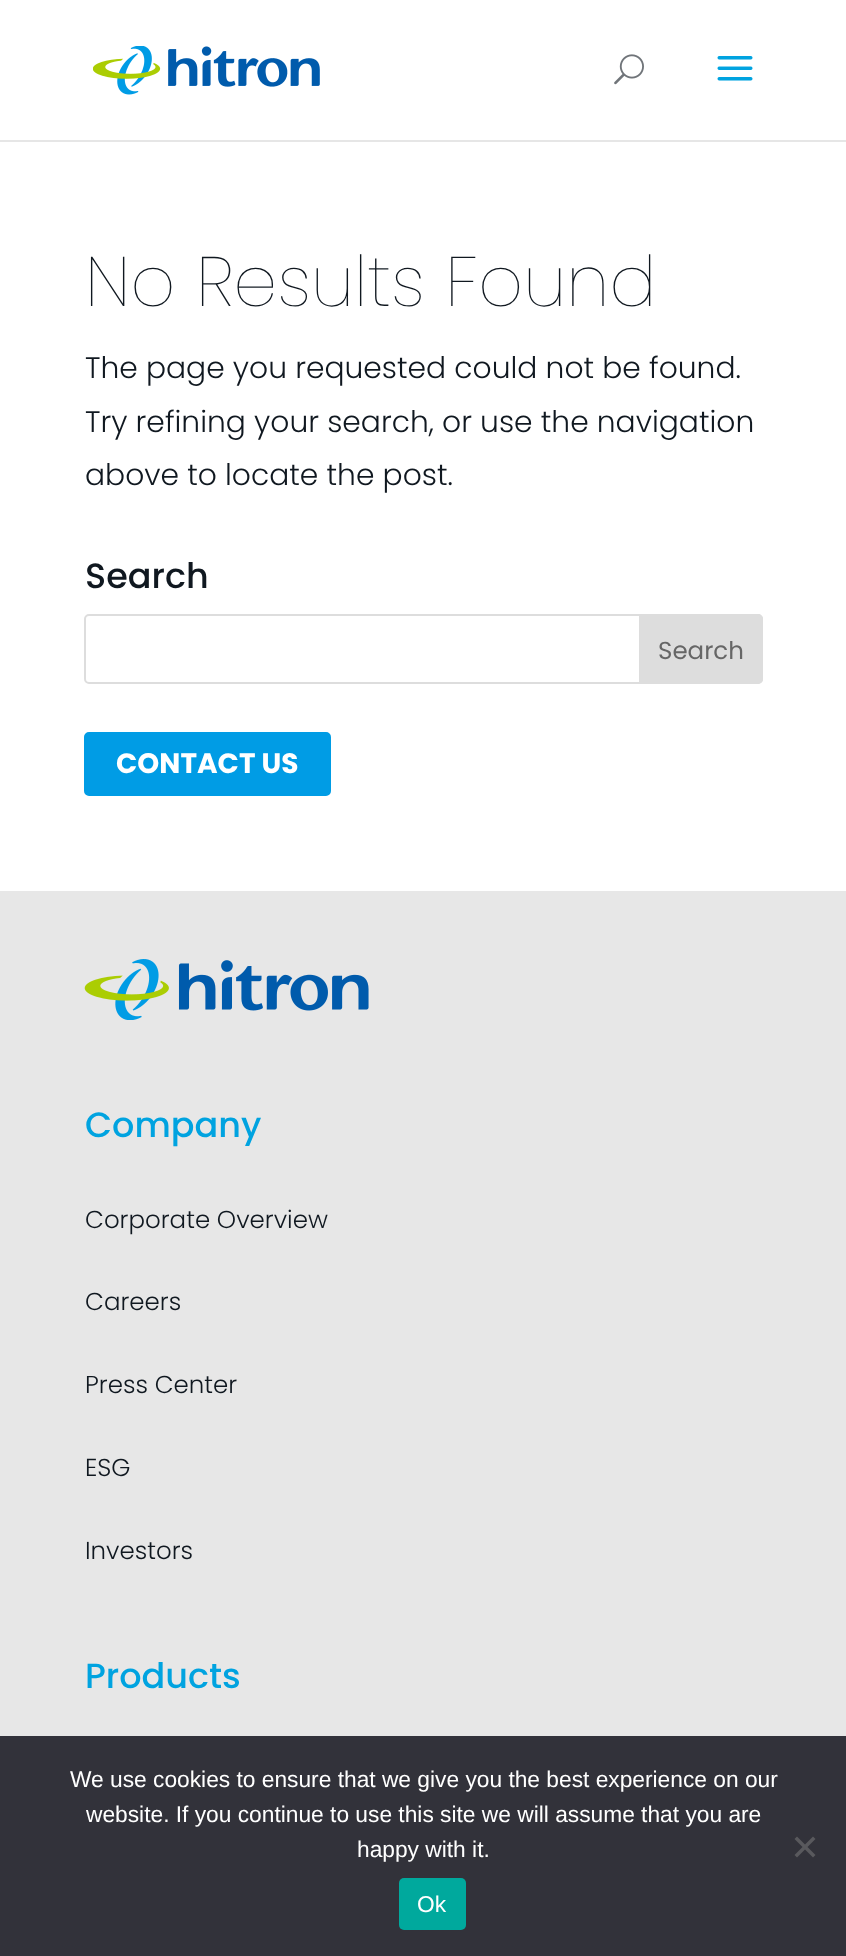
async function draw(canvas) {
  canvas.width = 846;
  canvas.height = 1956;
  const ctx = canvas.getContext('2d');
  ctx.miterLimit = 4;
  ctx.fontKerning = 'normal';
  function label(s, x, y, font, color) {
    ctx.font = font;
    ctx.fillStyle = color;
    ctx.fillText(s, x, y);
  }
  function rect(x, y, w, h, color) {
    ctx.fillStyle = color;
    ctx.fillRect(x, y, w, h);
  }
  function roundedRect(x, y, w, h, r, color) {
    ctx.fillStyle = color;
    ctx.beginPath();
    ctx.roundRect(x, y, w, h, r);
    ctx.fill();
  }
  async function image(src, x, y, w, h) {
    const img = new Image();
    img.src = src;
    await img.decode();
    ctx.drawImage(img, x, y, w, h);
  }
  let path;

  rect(0, 0, 846, 1956, '#fff');
  rect(0, 140, 846, 2, '#e6e6e6');
  await image('assets/img1.png', 93, 46, 227, 49);
  await image('assets/img2.png', 614, 54, 30, 31);
  await image('assets/img3.png', 717, 56, 36, 25);
  label('No Results Found', 85, 306, '100 70px Poppins', '#101820');
  label('The page you requested could not be found.', 85, 378, '300 29.75px Poppins', '#101820');
  label('Try refining your search, or use the navigation', 85, 432, '300 29.75px Poppins', '#101820');
  label('above to locate the post.', 85, 485, '300 29.75px Poppins', '#101820');
  label('Search', 85, 588, '500 35px Poppins', '#101820');
  ctx.beginPath();
  ctx.roundRect(85, 615, 677, 68, 4);
  ctx.strokeStyle = '#ddd';
  ctx.lineWidth = 2;
  ctx.stroke();
  ctx.fillStyle = '#ddd';
  ctx.beginPath();
  ctx.roundRect(640, 615, 122, 68, [0, 4, 4, 0]);
  ctx.fill();
  ctx.stroke();
  label('Search', 658, 659, '24.5px Poppins', '#666');
  ctx.fillStyle = '#009ce5';
  ctx.beginPath();
  ctx.roundRect(86, 734, 243, 60, 3);
  ctx.fill();
  ctx.strokeStyle = '#009ce5';
  ctx.lineWidth = 4;
  ctx.stroke();
  label('CONTACT US', 116, 773, 'bold 28px Poppins', '#fff');
  rect(0, 891, 846, 845, '#e7e7e7');
  await image('assets/img4.png', 84, 959, 285, 61);
  label('Company', 85, 1137, '500 35px Poppins', '#00a3e0');
  label('Corporate Overview', 85, 1228, '300 24.5px Poppins', '#101820');
  label('Careers', 85, 1310, '300 24.5px Poppins', '#101820');
  label('Press Center', 85, 1393, '300 24.5px Poppins', '#101820');
  label('ESG', 85, 1476, '300 24.5px Poppins', '#101820');
  label('Investors', 85, 1559, '300 24.5px Poppins', '#101820');
  label('Products', 85, 1688, '500 35px Poppins', '#00a3e0');
  rect(0, 1736, 846, 220, '#32323a');
  label('We use cookies to ensure that we give you the best experience on our', 70, 1787, '22.75px Liberation Sans', '#fff');
  label('website. If you continue to use this site we will assume that you are', 86, 1822, '22.75px Liberation Sans', '#fff');
  label('happy with it.', 357, 1857, '22.75px Liberation Sans', '#fff');
  ctx.fillStyle = '#59595d';
  path = new Path2D('M813 1836.5L815.5 1839L797 1857.5L794.5 1855Z');
  ctx.fill(path);
  path = new Path2D('M794.5 1839L797 1836.5L815.5 1855L813 1857.5Z');
  ctx.fill(path);
  roundedRect(399, 1878, 67, 52, 5, '#00a99d');
  label('Ok', 417, 1912, '22.75px Liberation Sans', '#fff');
}

draw(document.querySelector('canvas'));
